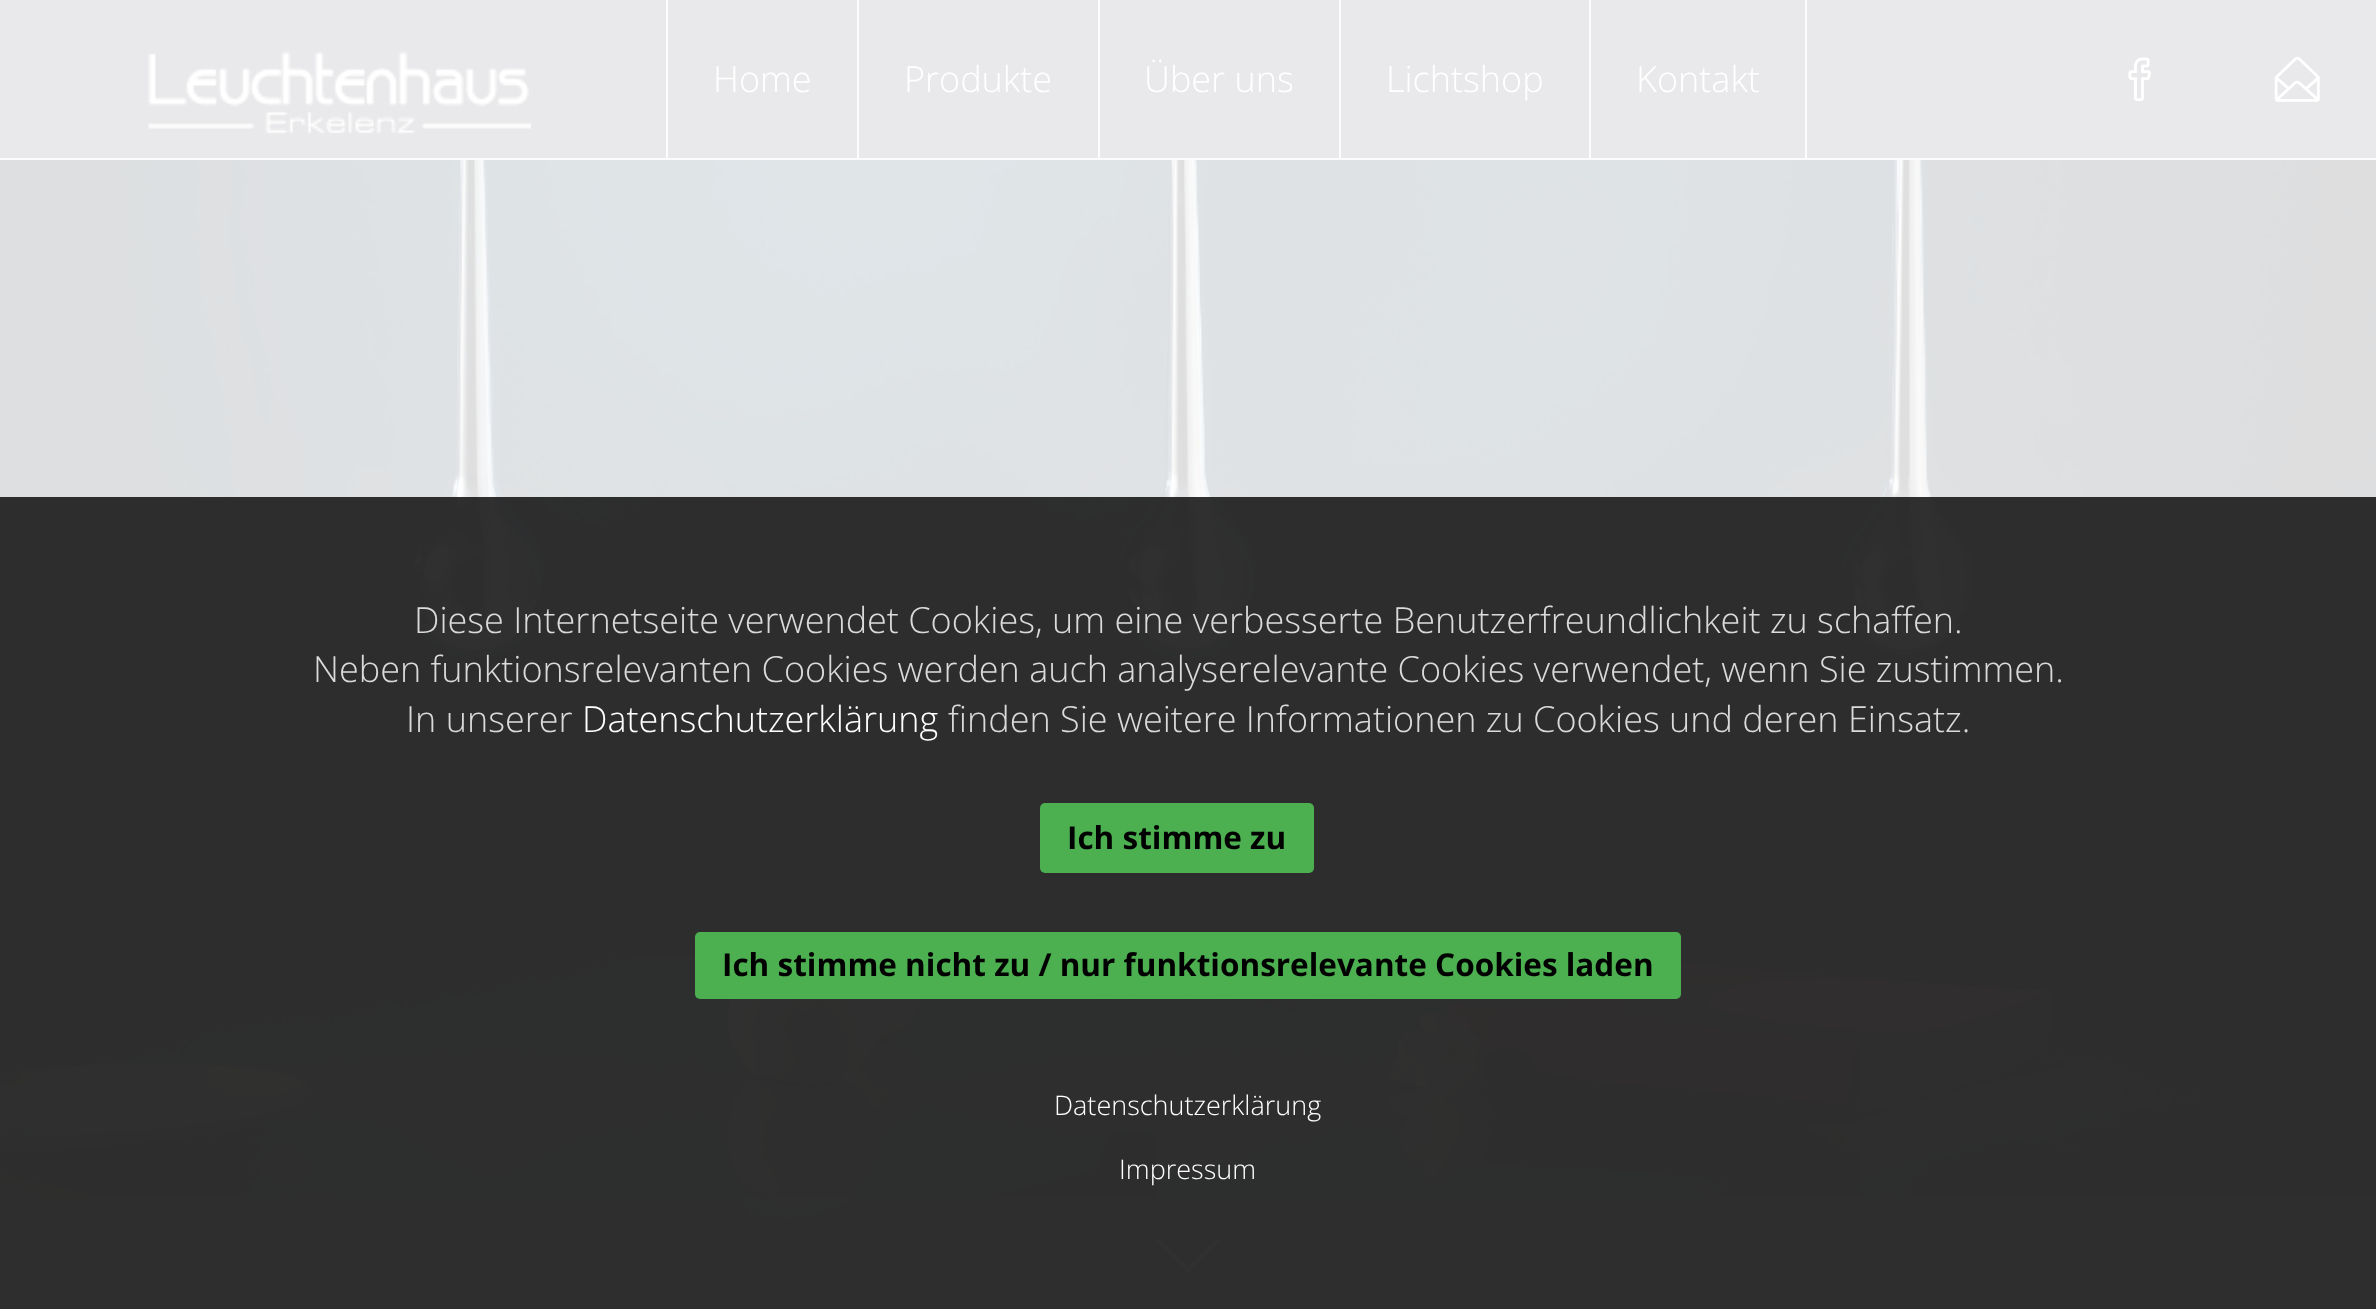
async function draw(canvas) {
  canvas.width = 2376;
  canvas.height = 1309;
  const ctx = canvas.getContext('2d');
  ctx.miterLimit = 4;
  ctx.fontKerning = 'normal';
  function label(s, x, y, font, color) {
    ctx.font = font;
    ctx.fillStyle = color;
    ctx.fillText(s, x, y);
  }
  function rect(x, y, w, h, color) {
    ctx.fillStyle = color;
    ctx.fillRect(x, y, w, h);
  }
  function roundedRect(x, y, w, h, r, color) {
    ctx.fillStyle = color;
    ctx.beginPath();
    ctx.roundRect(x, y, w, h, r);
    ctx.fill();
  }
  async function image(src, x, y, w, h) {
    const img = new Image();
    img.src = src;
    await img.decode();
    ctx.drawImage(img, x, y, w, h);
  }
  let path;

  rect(0, 0, 2376, 1309, '#fff');
  rect(0, 0, 2376, 158, '#e9e9eb');
  rect(0, 158, 2376, 2, '#fcfcfc');
  await image('assets/img1.png', 148, 51, 383, 83);
  rect(666, 0, 2, 158, '#fcfcfc');
  label('Home', 713, 92, '300 36px Open Sans', '#fff');
  rect(857, 0, 2, 158, '#fcfcfc');
  label('Produkte', 904, 92, '300 36px Open Sans', '#fff');
  rect(1098, 0, 2, 158, '#fcfcfc');
  label('Über uns', 1144, 92, '300 36px Open Sans', '#fff');
  rect(1339, 0, 2, 158, '#fcfcfc');
  label('Lichtshop', 1386, 92, '300 36px Open Sans', '#fff');
  rect(1805, 0, 2, 158, '#fcfcfc');
  rect(1589, 0, 2, 158, '#fcfcfc');
  label('Kontakt', 1636, 92, '300 36px Open Sans', '#fff');
  await image('assets/img2.png', 2128, 57, 23, 45);
  await image('assets/img3.png', 2274, 56, 46, 46);
  await image('assets/img4.png', 0, 160, 2376, 1149);
  rect(0, 1197, 2376, 112, '#ffffff40');
  ctx.fillStyle = '#fff';
  path = new Path2D('M1185 1270.5L1216.5 1239L1220 1242L1188 1274Z');
  ctx.fill(path);
  path = new Path2D('M1156 1242L1159.5 1239L1191 1270.5L1188 1274Z');
  ctx.fill(path);
  rect(0, 497, 2376, 812, '#191919e6');
  label('Diese Internetseite verwendet Cookies, um eine verbesserte Benutzerfreundlichkeit zu schaffen.', 414, 633, '300 36px Open Sans', '#dadada');
  label('Neben funktionsrelevanten Cookies werden auch analyserelevante Cookies verwendet, wenn Sie zustimmen.', 313, 682, '300 36px Open Sans', '#dadada');
  label('In unserer', 406, 732, '300 36px Open Sans', '#dadada');
  label('Datenschutzerklärung', 582, 732, '300 36px Open Sans', '#fff');
  label('finden Sie weitere Informationen zu Cookies und deren Einsatz.', 948, 732, '300 36px Open Sans', '#dadada');
  roundedRect(1040, 803, 274, 70, 5, '#4caf50');
  label('Ich stimme zu', 1067, 849, 'bold 31.5px Open Sans', '#000');
  roundedRect(695, 932, 986, 67, 5, '#4caf50');
  label('Ich stimme nicht zu / nur funktionsrelevante Cookies laden', 722, 976, 'bold 31.5px Open Sans', '#000');
  label('Datenschutzerklärung', 1054, 1115, '300 27px Open Sans', '#fff');
  label('Impressum', 1119, 1179, '300 27px Open Sans', '#fff');
}

draw(document.querySelector('canvas'));
